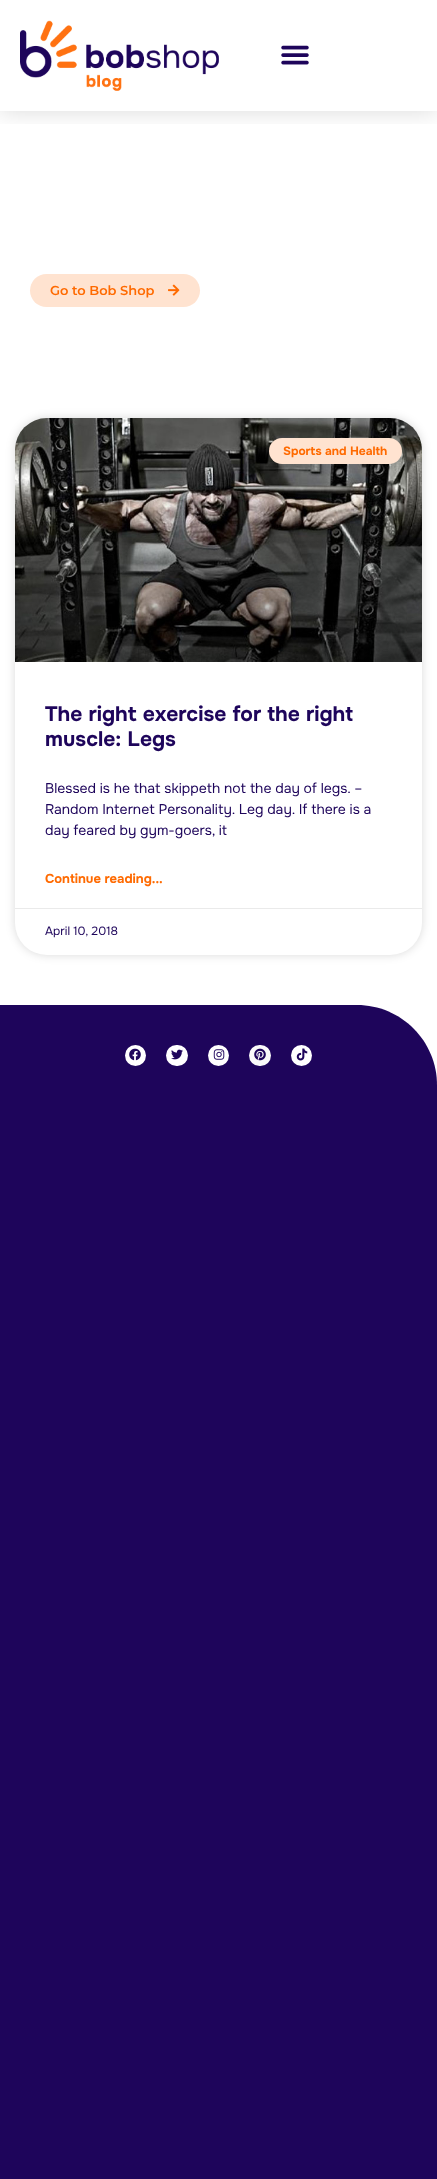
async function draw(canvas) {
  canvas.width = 437;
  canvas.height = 2179;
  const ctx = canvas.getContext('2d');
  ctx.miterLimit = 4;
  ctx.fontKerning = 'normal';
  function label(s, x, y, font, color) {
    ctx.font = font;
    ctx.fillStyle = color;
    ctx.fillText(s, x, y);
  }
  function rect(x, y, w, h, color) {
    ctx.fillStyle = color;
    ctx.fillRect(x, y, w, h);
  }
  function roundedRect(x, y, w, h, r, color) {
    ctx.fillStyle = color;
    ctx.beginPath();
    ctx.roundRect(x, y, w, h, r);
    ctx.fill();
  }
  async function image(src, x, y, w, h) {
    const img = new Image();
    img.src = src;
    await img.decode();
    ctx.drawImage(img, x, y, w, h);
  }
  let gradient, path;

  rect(0, 0, 437, 2179, '#fff');
  ctx.save();
  ctx.beginPath();
  ctx.rect(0, 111, 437, 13);
  ctx.clip();
  ctx.fillStyle = '#00000026';
  ctx.filter = 'blur(12px)';
  ctx.beginPath();
  ctx.rect(0, 0, 437, 111);
  ctx.fill();
  ctx.filter = 'none';
  ctx.restore();
  await image('assets/img1.png', 20, 20, 199, 71);
  await image('assets/img2.png', 281, 45, 28, 20);
  roundedRect(30, 274, 170, 33, 16.5, '#ffe3d0');
  label('Go to Bob Shop', 50, 295, '600 13px Montserrat', '#ff6a00');
  await image('assets/img3.png', 168, 284, 12, 12);
  ctx.fillStyle = '#00000026';
  ctx.filter = 'blur(5px)';
  ctx.beginPath();
  ctx.roundRect(15, 418, 407, 537, 32);
  ctx.fill();
  ctx.filter = 'none';
  roundedRect(15, 418, 407, 537, 32, '#fff');
  await image('assets/img4.png', 15, 418, 407, 244);
  gradient = ctx.createLinearGradient(219, 662, 219, 418);
  gradient.addColorStop(0, '#00000059');
  gradient.addColorStop(0.75, '#00000000');
  ctx.fillStyle = gradient;
  ctx.fillRect(15, 490, 407, 172);
  roundedRect(269, 438, 133, 26, 13, '#ffe3d0');
  label('Sports and Health', 283, 455, 'bold 12px Onest', '#ff6a00');
  ctx.wordSpacing = '0.25px';
  label('The right exercise for the right', 45, 721, 'bold 21px Onest', '#1e055b');
  ctx.wordSpacing = '0px';
  label('muscle: Legs', 45, 746, 'bold 21px Onest', '#1e055b');
  label('Blessed is he that skippeth not the day of legs. –', 45, 793, '14px Onest', '#1e055b');
  label('Random Internet Personality. Leg day. If there is a', 45, 814, '14px Onest', '#1e055b');
  label('day feared by gym-goers, it', 45, 835, '14px Onest', '#1e055b');
  label('Continue reading...', 45, 883, 'bold 13px Onest', '#ff6a00');
  rect(15, 908, 407, 1, '#eaeaea');
  label('April 10, 2018', 45, 935, '12px Onest', '#1e055b');
  path = new Path2D('M0 1005H357C401 1005 437 1041 437 1085V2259H0Z');
  ctx.fill(path);
  ctx.fillStyle = '#fff';
  ctx.beginPath();
  ctx.arc(135.5, 1055.5, 10.5, 0, 2 * Math.PI);
  ctx.fill();
  await image('assets/img5.png', 129, 1048, 12, 13);
  roundedRect(166, 1045, 22, 21, 10.5, '#fff');
  await image('assets/img6.png', 171, 1049, 12, 11);
  ctx.beginPath();
  ctx.arc(218.5, 1055.5, 10.5, 0, 2 * Math.PI);
  ctx.fill();
  await image('assets/img7.png', 213, 1049, 12, 11);
  roundedRect(249, 1045, 22, 21, 10.5, '#fafafa');
  await image('assets/img8.png', 254, 1048, 12, 13);
  ctx.fillStyle = '#fff';
  ctx.beginPath();
  ctx.arc(301.5, 1055.5, 10.5, 0, 2 * Math.PI);
  ctx.fill();
  await image('assets/img9.png', 296, 1048, 12, 13);
}

draw(document.querySelector('canvas'));
